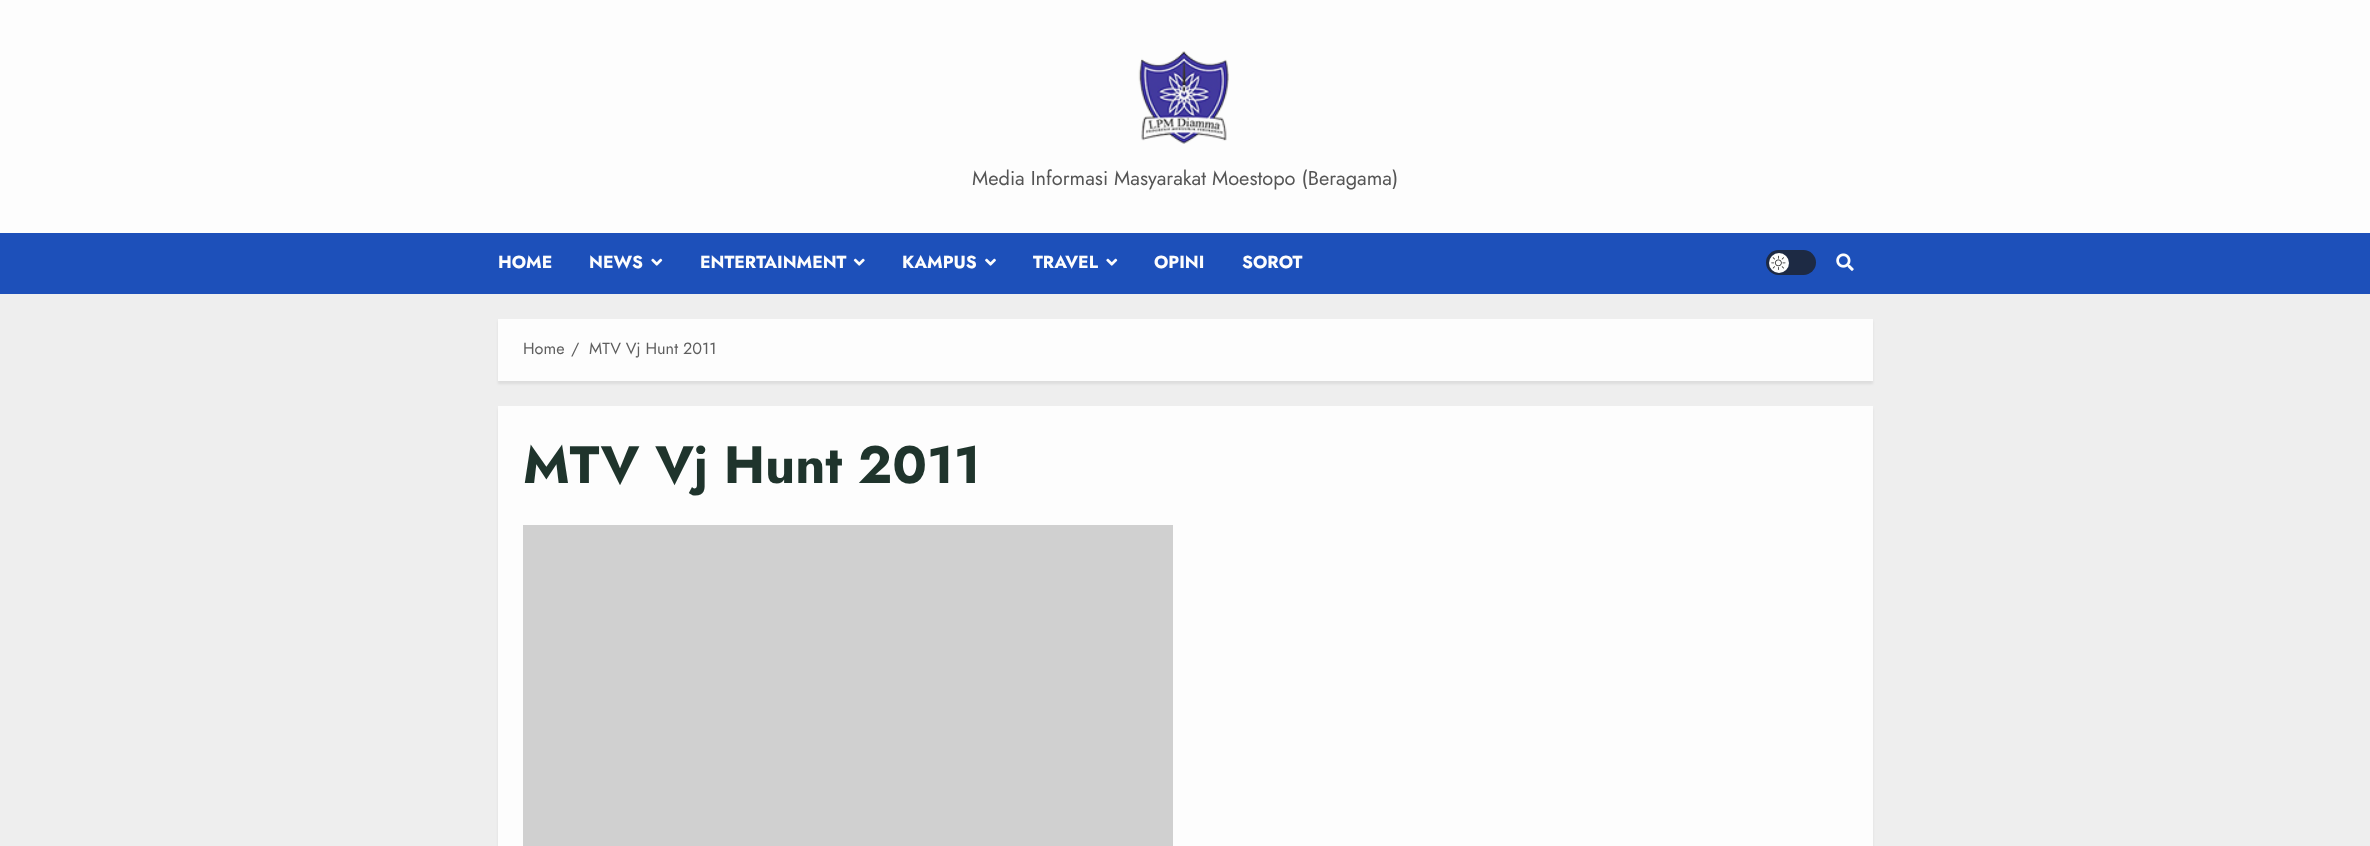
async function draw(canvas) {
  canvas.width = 2370;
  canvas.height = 846;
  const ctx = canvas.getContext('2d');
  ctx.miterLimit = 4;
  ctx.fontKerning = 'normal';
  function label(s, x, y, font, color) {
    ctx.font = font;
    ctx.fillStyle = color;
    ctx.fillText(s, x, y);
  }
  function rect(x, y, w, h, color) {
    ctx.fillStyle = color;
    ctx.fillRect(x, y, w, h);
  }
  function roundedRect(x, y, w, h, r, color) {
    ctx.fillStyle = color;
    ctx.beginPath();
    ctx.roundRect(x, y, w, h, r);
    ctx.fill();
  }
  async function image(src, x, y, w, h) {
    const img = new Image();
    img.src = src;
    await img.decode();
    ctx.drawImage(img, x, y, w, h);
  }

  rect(0, 0, 2370, 846, '#eee');
  rect(0, 0, 2370, 233, '#fdfdfd');
  await image('assets/img1.png', 1138, 51, 91, 93);
  label('Media Informasi Masyarakat Moestopo (Beragama)', 972, 185, '20px Jost', '#555');
  rect(0, 233, 2370, 61, '#1d50ba');
  label('HOME', 498, 268, 'bold 17.5px Jost', '#fdfdfd');
  label('NEWS', 589, 268, 'bold 17.5px Jost', '#fdfdfd');
  await image('assets/img2.png', 651, 258, 12, 8);
  label('ENTERTAINMENT', 700, 268, 'bold 17.5px Jost', '#fdfdfd');
  await image('assets/img3.png', 853, 258, 12, 8);
  label('KAMPUS', 902, 268, 'bold 17.5px Jost', '#fdfdfd');
  await image('assets/img4.png', 985, 258, 11, 8);
  label('TRAVEL', 1033, 268, 'bold 17.5px Jost', '#fdfdfd');
  await image('assets/img2.png', 1106, 258, 12, 8);
  label('OPINI', 1154, 268, 'bold 17.5px Jost', '#fdfdfd');
  label('SOROT', 1242, 268, 'bold 17.5px Jost', '#fdfdfd');
  roundedRect(1766, 250, 50, 25, 12.5, '#1d2a44');
  ctx.fillStyle = '#fdfdfd';
  ctx.beginPath();
  ctx.arc(1779, 263, 10, 0, 2 * Math.PI);
  ctx.fill();
  await image('assets/img5.png', 1771, 255, 15, 15);
  await image('assets/img6.png', 1836, 253, 18, 18);
  ctx.fillStyle = '#1d1d1d14';
  ctx.filter = 'blur(1px)';
  ctx.beginPath();
  ctx.rect(498, 321, 1375, 63);
  ctx.fill();
  ctx.filter = 'none';
  rect(498, 319, 1375, 62, '#fdfdfd');
  label('Home', 523, 354, '16.25px Jost', '#5e5e5e');
  label('/', 571, 354, '16.25px Jost', '#5e5e5e');
  label('MTV Vj Hunt 2011', 589, 354, '16.25px Jost', '#5e5e5e');
  ctx.fillStyle = '#1d1d1d14';
  ctx.filter = 'blur(1px)';
  ctx.beginPath();
  ctx.rect(498, 409, 1375, 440);
  ctx.fill();
  ctx.filter = 'none';
  rect(498, 406, 1375, 440, '#fdfdfd');
  label('MTV Vj Hunt 2011', 523, 483, 'bold 52.5px Jost', '#1f342c');
  rect(523, 525, 650, 321, '#d0d0d0');
}

draw(document.querySelector('canvas'));
